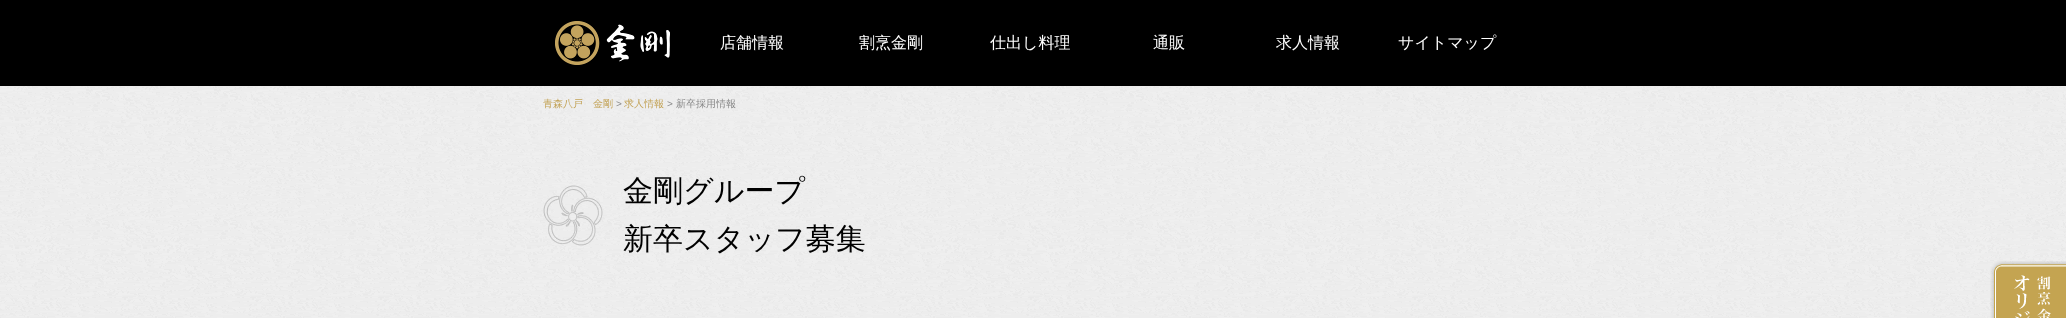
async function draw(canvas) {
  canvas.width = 2066;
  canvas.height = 318;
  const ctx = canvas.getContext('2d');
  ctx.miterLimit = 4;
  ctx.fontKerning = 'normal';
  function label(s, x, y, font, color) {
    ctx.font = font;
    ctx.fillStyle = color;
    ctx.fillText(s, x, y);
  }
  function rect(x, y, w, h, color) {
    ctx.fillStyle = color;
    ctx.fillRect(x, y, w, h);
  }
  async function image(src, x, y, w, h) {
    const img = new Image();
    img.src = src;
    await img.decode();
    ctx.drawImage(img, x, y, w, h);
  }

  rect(0, 0, 2066, 318, '#fff');
  await image('assets/img1.png', 0, 86, 2066, 232);
  rect(0, 0, 2066, 86, '#000');
  await image('assets/img2.png', 555, 21, 115, 44);
  label('店舗情報', 720, 48, '500 16px WenQuanYi Zen Hei', '#fff');
  label('割烹金剛', 859, 48, '500 16px WenQuanYi Zen Hei', '#fff');
  label('仕出し料理', 990, 48, '500 16px WenQuanYi Zen Hei', '#fff');
  label('通販', 1153, 48, '500 16px WenQuanYi Zen Hei', '#fff');
  label('求人情報', 1276, 48, '500 16px WenQuanYi Zen Hei', '#fff');
  label('サイトマップ', 1398, 48, '500 16px WenQuanYi Zen Hei', '#fff');
  await image('assets/img3.png', 1990, 261, 76, 57);
  label('青森八戸　金剛', 543, 107, '500 10px WenQuanYi Zen Hei', '#c3a357');
  label('>', 616, 107, '10px Liberation Sans', '#888');
  label('求人情報', 624, 107, '500 10px WenQuanYi Zen Hei', '#c3a357');
  label('>', 667, 107, '10px Liberation Sans', '#888');
  label('新卒採用情報', 676, 107, '500 10px WenQuanYi Zen Hei', '#888');
  await image('assets/img4.png', 543, 185, 60, 61);
  label('金剛グループ', 623, 201, '500 30px WenQuanYi Zen Hei', '#000');
  label('新卒スタッフ募集', 623, 249, '500 30px WenQuanYi Zen Hei', '#000');
}

draw(document.querySelector('canvas'));
